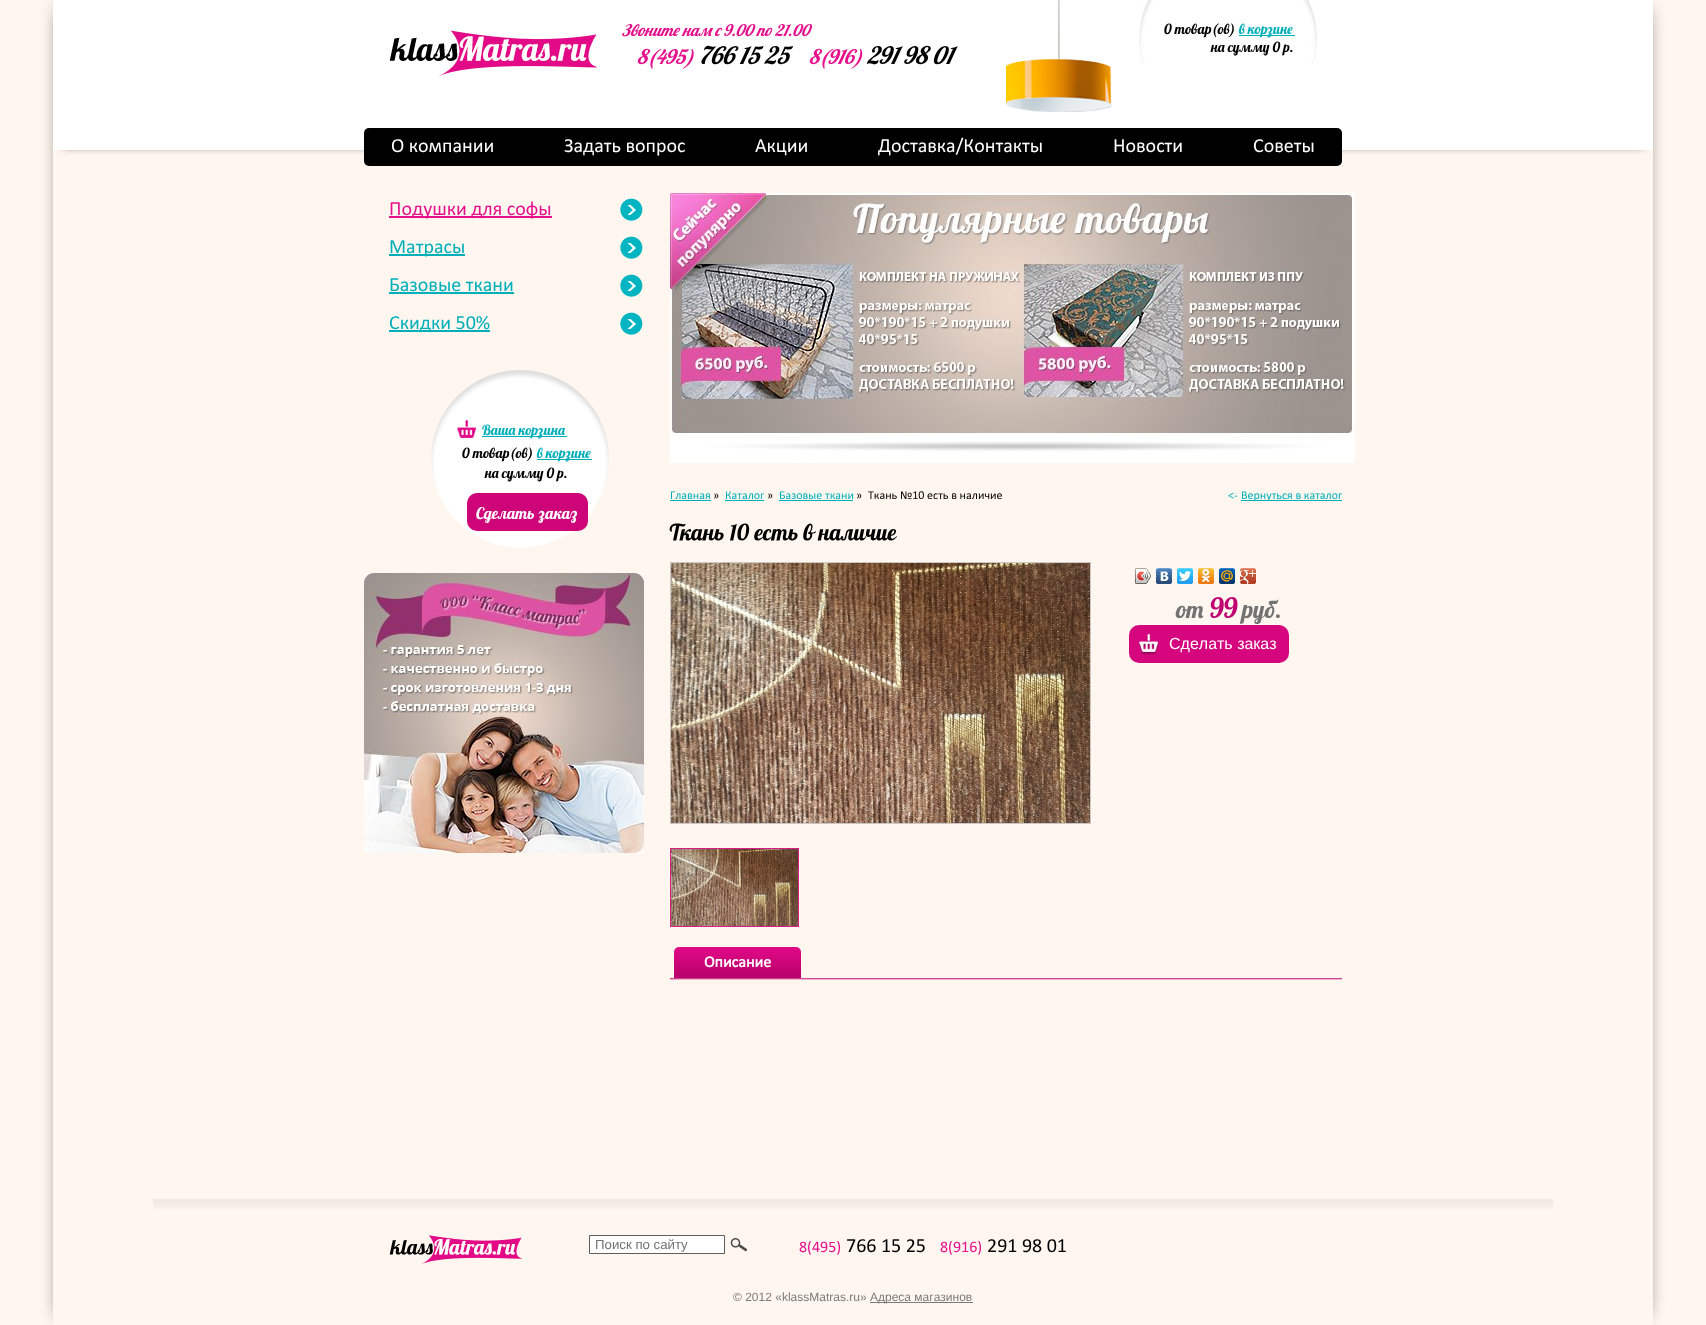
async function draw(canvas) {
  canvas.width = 1706;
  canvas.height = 1325;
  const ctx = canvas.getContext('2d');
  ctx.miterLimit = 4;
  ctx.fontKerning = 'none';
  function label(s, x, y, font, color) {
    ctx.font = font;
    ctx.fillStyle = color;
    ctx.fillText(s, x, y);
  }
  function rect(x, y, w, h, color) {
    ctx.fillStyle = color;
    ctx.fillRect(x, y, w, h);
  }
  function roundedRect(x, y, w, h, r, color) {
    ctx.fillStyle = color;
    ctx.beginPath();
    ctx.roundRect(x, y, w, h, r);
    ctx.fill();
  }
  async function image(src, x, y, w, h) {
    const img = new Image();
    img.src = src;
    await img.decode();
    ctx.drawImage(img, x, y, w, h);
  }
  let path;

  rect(0, 0, 1706, 1325, '#fff7ef');
  ctx.save();
  path = new Path2D('M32 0H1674V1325H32ZM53 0H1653V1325H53Z');
  ctx.clip(path, 'evenodd');
  ctx.fillStyle = '#000';
  ctx.filter = 'blur(10px)';
  ctx.beginPath();
  ctx.rect(63, 10, 1580, 1305);
  ctx.fill();
  ctx.filter = 'none';
  ctx.restore();
  ctx.fillStyle = '#000';
  ctx.filter = 'blur(5px)';
  ctx.beginPath();
  ctx.rect(63, 15, 1580, 130);
  ctx.fill();
  ctx.filter = 'none';
  rect(53, 0, 1600, 150, '#fff');
  await image('assets/img1.png', 1006, 0, 106, 112);
  await image('assets/img2.png', 389, 30, 209, 47);
  label('Звоните нам с 9.00 по 21.00', 622, 36, 'italic 16px Lobster', '#e60f8c');
  label('8(495)', 637, 64, 'italic 20px Lobster', '#e60f8c');
  label('766 15 25', 699, 64, 'italic 24px Lobster', '#000');
  label('8(916)', 809, 64, 'italic 20px Lobster', '#e60f8c');
  label('291 98 01', 867, 64, 'italic 24px Lobster', '#000');
  await image('assets/img3.png', 1139, 0, 178, 65);
  label('0 товар(ов)', 1164, 34, '14px Lobster', '#000');
  rect(1239, 35, 56, 1, '#00afba');
  label('в корзине', 1239, 34, '14px Lobster', '#00afba');
  label('на сумму 0 р.', 1211, 52, '14px Lobster', '#000');
  roundedRect(364, 128, 978, 38, 5, '#000');
  label('О компании', 391, 152, '20px Calibri', '#fff');
  label('Задать вопрос', 564, 152, '20px Calibri', '#fff');
  label('Акции', 755, 152, '20px Calibri', '#fff');
  label('Доставка/Контакты', 878, 152, '20px Calibri', '#fff');
  label('Новости', 1113, 152, '20px Calibri', '#fff');
  label('Советы', 1253, 152, '20px Calibri', '#fff');
  await image('assets/img4.png', 620, 198, 23, 23);
  rect(389, 216, 163, 2, '#e60f8c');
  label('Подушки для софы', 389, 215, '20px Calibri', '#e60f8c');
  await image('assets/img4.png', 620, 236, 23, 23);
  rect(389, 254, 76, 2, '#00afba');
  label('Матрасы', 389, 253, '20px Calibri', '#00afba');
  await image('assets/img4.png', 620, 274, 23, 23);
  label('Базовые ткани', 389, 291, '20px Calibri', '#00afba');
  rect(389, 292, 125, 2, '#00afba');
  await image('assets/img4.png', 620, 312, 23, 23);
  rect(389, 330, 101, 2, '#00afba');
  label('Скидки 50%', 389, 329, '20px Calibri', '#00afba');
  await image('assets/img5.png', 431, 370, 178, 178);
  await image('assets/img6.png', 457, 420, 19, 18);
  rect(482, 436, 85, 1, '#00afba');
  label('Ваша корзина', 482, 435, '14px Lobster', '#00afba');
  label('0 товар(ов)', 462, 458, '14px Lobster', '#000');
  rect(537, 459, 55, 1, '#00afba');
  label('в корзине', 537, 458, '14px Lobster', '#00afba');
  label('на сумму 0 р.', 485, 478, '14px Lobster', '#000');
  roundedRect(467, 493, 121, 38, 10, '#cd0579');
  label('Сделать заказ', 476, 519, '16px Lobster', '#fff');
  await image('assets/img7.png', 364, 573, 280, 280);
  await image('assets/img8.png', 670, 193, 685, 270);
  label('Главная', 670, 499, '12px Calibri', '#00afba');
  rect(670, 500, 41, 1, '#00afba');
  label('»', 713, 499, '12px Calibri', '#000');
  label('Каталог', 725, 499, '12px Calibri', '#00afba');
  rect(725, 500, 39, 1, '#00afba');
  label('»', 767, 499, '12px Calibri', '#000');
  label('Базовые ткани', 779, 499, '12px Calibri', '#00afba');
  rect(779, 500, 74, 1, '#00afba');
  label('»', 856, 499, '12px Calibri', '#000');
  label('Ткань №10 есть в наличие', 868, 499, '12px Calibri', '#000');
  label('<-', 1228, 499, '12px Calibri', '#00afba');
  rect(1241, 500, 101, 1, '#00afba');
  label('Вернуться в каталог', 1241, 499, '12px Calibri', '#00afba');
  await image('assets/img9.png', 669, 523, 55, 18);
  await image('assets/img10.png', 730, 523, 20, 18);
  await image('assets/img11.png', 754, 529, 44, 12);
  await image('assets/img12.png', 803, 523, 13, 18);
  await image('assets/img13.png', 817, 529, 80, 12);
  ctx.strokeStyle = '#cac7c6';
  ctx.strokeRect(670.5, 562.5, 420, 261);
  await image('assets/img14.png', 671, 563, 419, 260);
  ctx.strokeStyle = '#da1c8a';
  ctx.strokeRect(670.5, 848.5, 128, 78);
  await image('assets/img15.png', 671, 849, 127, 77);
  await image('assets/img16.png', 1135, 568, 16, 16);
  await image('assets/img17.png', 1135, 568, 16, 16);
  await image('assets/img18.png', 1156, 568, 16, 16);
  await image('assets/img19.png', 1177, 568, 16, 16);
  await image('assets/img20.png', 1198, 568, 16, 16);
  await image('assets/img21.png', 1219, 568, 16, 16);
  await image('assets/img22.png', 1240, 568, 16, 16);
  label('от', 1176, 618, '24px Lobster', '#727272');
  label('99', 1210, 618, '28px Lobster', '#bf0471');
  label('руб.', 1242, 618, '24px Lobster', '#727272');
  roundedRect(1129, 625, 160, 38, 10, '#d5067e');
  await image('assets/img23.png', 1138, 634, 21, 21);
  label('Сделать заказ', 1169, 649, '16px Liberation Sans', '#fff');
  await image('assets/img24.png', 670, 978, 672, 2);
  await image('assets/img25.png', 674, 947, 127, 31);
  label('Описание', 704, 967, 'bold 16px Calibri', '#fff');
  await image('assets/img26.png', 153, 1199, 1400, 10);
  await image('assets/img27.png', 389, 1235, 133, 30);
  ctx.beginPath();
  ctx.rect(589.5, 1235.5, 135, 18);
  ctx.fill();
  ctx.strokeStyle = '#5f5f5f';
  ctx.stroke();
  label('Поиск по сайту', 595, 1249, '13.25px Liberation Sans', '#727272');
  await image('assets/img28.png', 730, 1238, 17, 14);
  label('8(495)', 799, 1252, '16px Calibri', '#e60f8c');
  label('766 15 25', 846, 1252, '20px Calibri', '#000');
  label('8(916)', 940, 1252, '16px Calibri', '#e60f8c');
  label('291 98 01', 987, 1252, '20px Calibri', '#000');
  label('© 2012 «klassMatras.ru»', 733, 1301, '12px Liberation Sans', '#7b7b7b');
  rect(870, 1302, 103, 1, '#7b7b7b');
  label('Адреса магазинов', 870, 1301, '12px Liberation Sans', '#7b7b7b');
}

draw(document.querySelector('canvas'));
